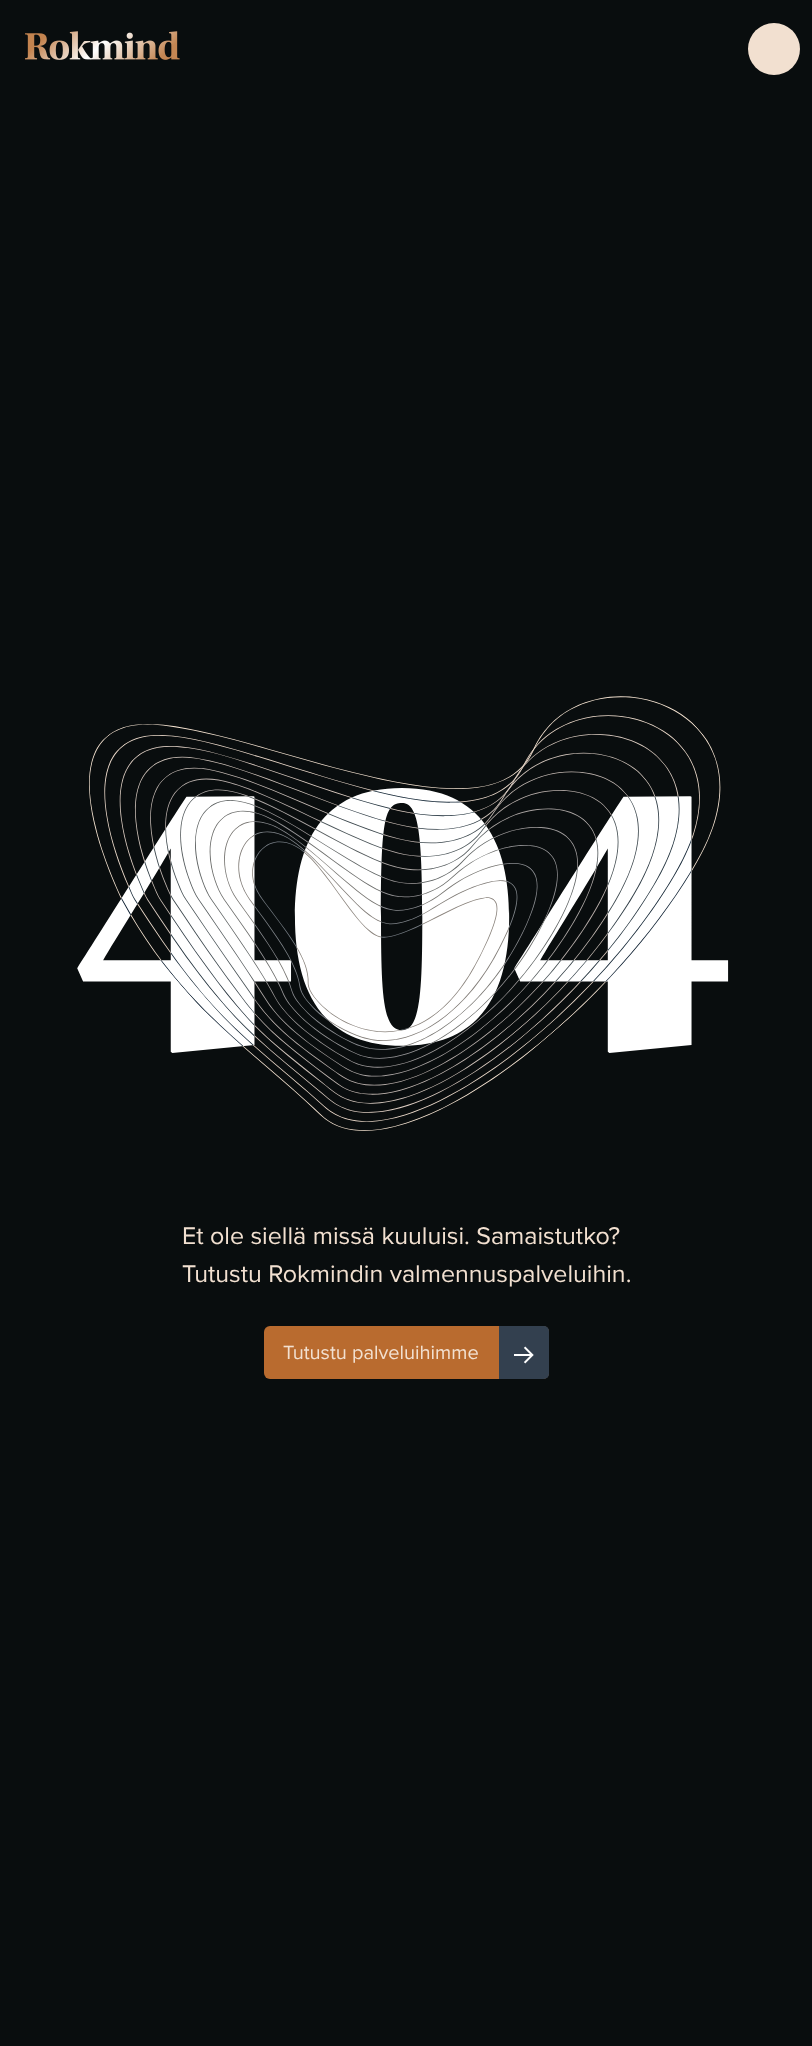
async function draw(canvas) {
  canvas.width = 812;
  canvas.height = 2046;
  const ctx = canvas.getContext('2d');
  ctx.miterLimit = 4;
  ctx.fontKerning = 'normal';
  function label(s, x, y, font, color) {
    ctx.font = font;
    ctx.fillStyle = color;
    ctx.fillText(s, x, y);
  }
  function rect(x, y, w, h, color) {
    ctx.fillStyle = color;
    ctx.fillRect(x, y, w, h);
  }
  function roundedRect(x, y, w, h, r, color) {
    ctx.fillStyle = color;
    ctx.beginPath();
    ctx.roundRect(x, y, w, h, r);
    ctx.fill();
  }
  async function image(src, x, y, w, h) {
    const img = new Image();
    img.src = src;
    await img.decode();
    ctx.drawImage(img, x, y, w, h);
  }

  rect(0, 0, 812, 2046, '#090d0e');
  await image('assets/img1.png', 25, 31, 155, 29);
  ctx.fillStyle = '#f2e0d0';
  ctx.beginPath();
  ctx.arc(774, 49, 26, 0, 2 * Math.PI);
  ctx.fill();
  await image('assets/img2.png', 77, 696, 652, 435);
  label('Et ole siellä missä kuuluisi. Samaistutko?', 182, 1244, '25px Proxima Nova', '#f2e0d0');
  label('Tutustu Rokmindin valmennuspalveluihin.', 182, 1282, '25px Proxima Nova', '#f2e0d0');
  roundedRect(264, 1326, 285, 53, 6, '#b96b2f');
  label('Tutustu palveluihimme', 283, 1359, '20px Proxima Nova', '#f2e0d0');
  ctx.fillStyle = '#33404f';
  ctx.beginPath();
  ctx.roundRect(499, 1326, 50, 53, [0, 5, 5, 0]);
  ctx.fill();
  await image('assets/img3.png', 514, 1346, 20, 18);
}

draw(document.querySelector('canvas'));
